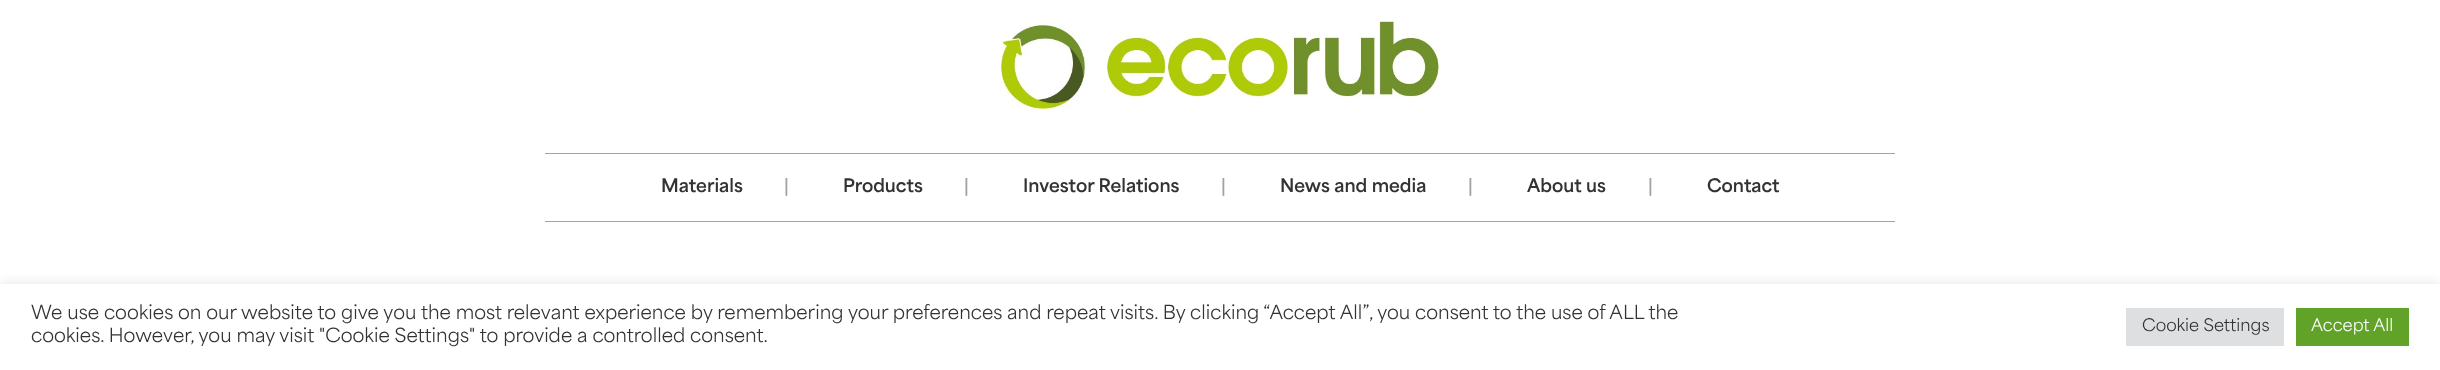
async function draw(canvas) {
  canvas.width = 2440;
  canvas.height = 370;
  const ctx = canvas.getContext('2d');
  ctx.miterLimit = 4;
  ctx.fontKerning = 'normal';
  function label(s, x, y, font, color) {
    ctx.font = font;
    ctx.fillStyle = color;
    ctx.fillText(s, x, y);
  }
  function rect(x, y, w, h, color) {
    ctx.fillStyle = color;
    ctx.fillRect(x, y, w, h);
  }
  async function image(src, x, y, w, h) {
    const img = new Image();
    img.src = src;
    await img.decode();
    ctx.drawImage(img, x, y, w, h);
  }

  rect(0, 0, 2440, 370, '#fff');
  await image('assets/img1.png', 1001, 21, 438, 88);
  rect(545, 153, 1350, 1, '#a2a2a2');
  rect(545, 221, 1350, 1, '#a2a2a2');
  label('Materials', 661, 192, 'bold 17.5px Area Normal', '#333');
  label('|', 784, 192, 'bold 17.5px Area Normal', '#a2a2a2');
  label('Products', 843, 192, 'bold 17.5px Area Normal', '#333');
  label('|', 964, 192, 'bold 17.5px Area Normal', '#a2a2a2');
  label('Investor Relations', 1023, 192, 'bold 17.5px Area Normal', '#333');
  label('|', 1221, 192, 'bold 17.5px Area Normal', '#a2a2a2');
  label('News and media', 1280, 192, 'bold 17.5px Area Normal', '#333');
  label('|', 1468, 192, 'bold 17.5px Area Normal', '#a2a2a2');
  label('About us', 1527, 192, 'bold 17.5px Area Normal', '#333');
  label('|', 1648, 192, 'bold 17.5px Area Normal', '#a2a2a2');
  label('Contact', 1707, 192, 'bold 17.5px Area Normal', '#333');
  ctx.fillStyle = '#acabab4d';
  ctx.filter = 'blur(6px)';
  ctx.beginPath();
  ctx.rect(0, 283, 2440, 86);
  ctx.fill();
  ctx.filter = 'none';
  rect(0, 284, 2440, 86, '#fff');
  label('We use cookies on our website to give you the most relevant experience by remembering your preferences and repeat visits. By clicking “Accept All”, you consent to the use of ALL the', 31, 319, '18.33px Area Normal', '#333');
  label('cookies. However, you may visit "Cookie Settings" to provide a controlled consent.', 31, 342, '18.33px Area Normal', '#333');
  rect(2126, 308, 158, 38, '#dedfe0');
  label('Cookie Settings', 2142, 331, '16.25px Area Normal', '#333');
  rect(2296, 308, 113, 38, '#61a229');
  label('Accept All', 2311, 331, '16.25px Area Normal', '#fff');
}

draw(document.querySelector('canvas'));
